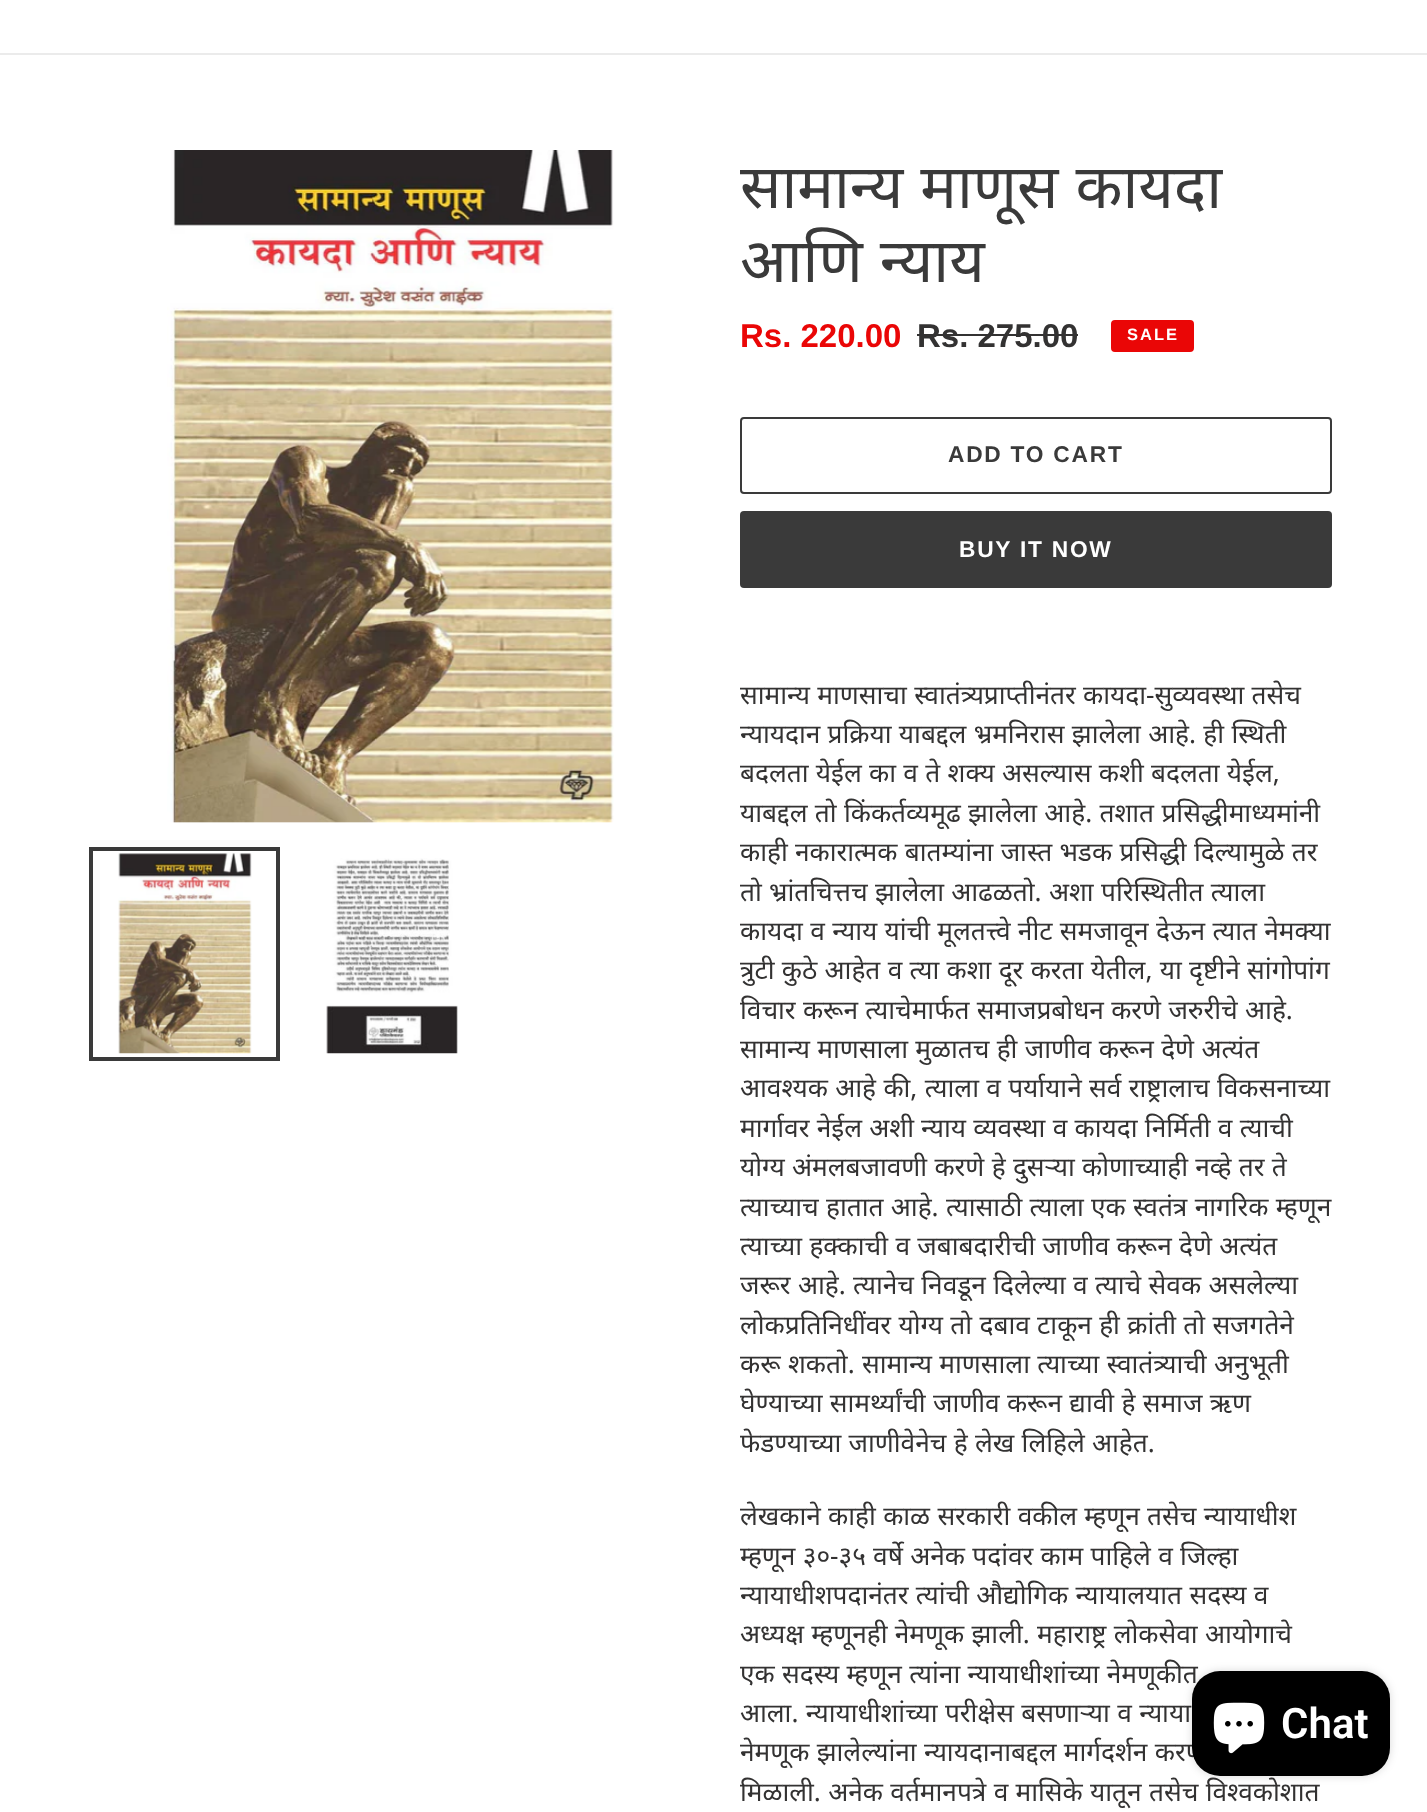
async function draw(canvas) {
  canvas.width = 1427;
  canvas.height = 1812;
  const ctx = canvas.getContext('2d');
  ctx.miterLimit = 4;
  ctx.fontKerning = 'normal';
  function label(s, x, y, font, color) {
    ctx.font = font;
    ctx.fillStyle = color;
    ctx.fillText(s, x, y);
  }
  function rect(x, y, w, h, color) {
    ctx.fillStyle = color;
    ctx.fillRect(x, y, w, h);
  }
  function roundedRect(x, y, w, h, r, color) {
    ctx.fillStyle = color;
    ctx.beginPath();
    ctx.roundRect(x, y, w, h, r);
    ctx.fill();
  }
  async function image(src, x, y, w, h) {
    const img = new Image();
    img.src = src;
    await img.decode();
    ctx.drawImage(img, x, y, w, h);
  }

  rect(0, 0, 1427, 1812, '#fff');
  rect(0, 53, 1427, 2, '#ebebeb');
  await image('assets/img1.png', 167, 150, 447, 673);
  ctx.strokeStyle = '#3a3a3a';
  ctx.lineWidth = 4;
  ctx.strokeRect(91, 849, 187, 210);
  await image('assets/img2.png', 118, 853, 134, 201);
  await image('assets/img3.png', 326, 858, 132, 196);
  ctx.wordSpacing = '1px';
  label('सामान्य माणूस कायदा', 740, 208, '61.25px Noto Sans', '#3a3a3a');
  label('आणि न्याय', 740, 282, '61.25px Noto Sans', '#3a3a3a');
  ctx.wordSpacing = '0px';
  label('Rs. 220.00', 740, 347, 'bold 33px Liberation Sans', '#ea0606');
  label('Rs. 275.00', 917, 347, 'bold 33px Liberation Sans', '#333232');
  rect(917, 334, 161, 2, '#333232');
  ctx.fillStyle = '#ea0606';
  ctx.beginPath();
  ctx.roundRect(1112, 321, 81, 30, 3);
  ctx.fill();
  ctx.strokeStyle = '#ea0606';
  ctx.lineWidth = 2;
  ctx.stroke();
  ctx.letterSpacing = '2px';
  label('SALE', 1127, 340, 'bold 16.5px Liberation Sans', '#fff');
  ctx.beginPath();
  ctx.roundRect(741, 418, 590, 75, 3);
  ctx.strokeStyle = '#3a3a3a';
  ctx.stroke();
  ctx.letterSpacing = '1.75px';
  label('ADD TO CART', 948, 462, 'bold 22.75px Liberation Sans', '#3a3a3a');
  roundedRect(740, 511, 592, 77, 4, '#3a3a3a');
  label('BUY IT NOW', 959, 557, 'bold 22.75px Liberation Sans', '#fff');
  ctx.letterSpacing = '0px';
  ctx.wordSpacing = '0.5px';
  label('सामान्य माणसाचा स्वातंत्र्यप्राप्तीनंतर कायदा-सुव्यवस्था तसेच', 740, 704, '26.25px Noto Sans', '#333232');
  label('न्यायदान प्रक्रिया याबद्दल भ्रमनिरास झालेला आहे. ही स्थिती', 740, 743, '26.25px Noto Sans', '#333232');
  label('बदलता येईल का व ते शक्य असल्यास कशी बदलता येईल,', 740, 782, '26.25px Noto Sans', '#333232');
  label('याबद्दल तो किंकर्तव्यमूढ झालेला आहे. तशात प्रसिद्धीमाध्यमांनी', 740, 822, '26.25px Noto Sans', '#333232');
  label('काही नकारात्मक बातम्यांना जास्त भडक प्रसिद्धी दिल्यामुळे तर', 740, 861, '26.25px Noto Sans', '#333232');
  label('तो भ्रांतचित्तच झालेला आढळतो. अशा परिस्थितीत त्याला', 740, 901, '26.25px Noto Sans', '#333232');
  label('कायदा व न्याय यांची मूलतत्त्वे नीट समजावून देऊन त्यात नेमक्या', 740, 940, '26.25px Noto Sans', '#333232');
  label('त्रुटी कुठे आहेत व त्या कशा दूर करता येतील, या दृष्टीने सांगोपांग', 740, 979, '26.25px Noto Sans', '#333232');
  label('विचार करून त्याचेमार्फत समाजप्रबोधन करणे जरुरीचे आहे.', 740, 1019, '26.25px Noto Sans', '#333232');
  label('सामान्य माणसाला मुळातच ही जाणीव करून देणे अत्यंत', 740, 1058, '26.25px Noto Sans', '#333232');
  label('आवश्यक आहे की, त्याला व पर्यायाने सर्व राष्ट्रालाच विकसनाच्या', 740, 1097, '26.25px Noto Sans', '#333232');
  label('मार्गावर नेईल अशी', 740, 1137, '26.25px Noto Sans', '#333232');
  label('न्याय व्यवस्था व कायदा निर्मिती व त्याची', 921, 1137, '26.25px Noto Sans', '#333232');
  label('योग्य अंमलबजावणी करणे हे दुसर्‍या कोणाच्याही नव्हे तर ते', 740, 1176, '26.25px Noto Sans', '#333232');
  label('त्याच्याच हातात आहे. त्यासाठी त्याला एक स्वतंत्र नागरिक म्हणून', 740, 1216, '26.25px Noto Sans', '#333232');
  label('त्याच्या हक्काची व जबाबदारीची जाणीव करून देणे अत्यंत', 740, 1255, '26.25px Noto Sans', '#333232');
  label('जरूर आहे. त्यानेच निवडून दिलेल्या व त्याचे सेवक असलेल्या', 740, 1294, '26.25px Noto Sans', '#333232');
  label('लोकप्रतिनिधींवर योग्य तो दबाव टाकून ही क्रांती तो सजगतेने', 740, 1334, '26.25px Noto Sans', '#333232');
  label('करू शकतो. सामान्य माणसाला त्याच्या स्वातंत्र्याची अनुभूती', 740, 1373, '26.25px Noto Sans', '#333232');
  label('घेण्याच्या सामर्थ्यांची जाणीव करून द्यावी हे समाज ऋण', 740, 1412, '26.25px Noto Sans', '#333232');
  label('फेडण्याच्या जाणीवेनेच हे लेख लिहिले आहेत.', 740, 1452, '26.25px Noto Sans', '#333232');
  label('लेखकाने काही काळ सरकारी वकील म्हणून तसेच न्यायाधीश', 740, 1525, '26.25px Noto Sans', '#333232');
  label('म्हणून ३०-३५ वर्षे अनेक पदांवर काम पाहिले व जिल्हा', 740, 1565, '26.25px Noto Sans', '#333232');
  label('न्यायाधीशपदानंतर त्यांची औद्योगिक न्यायालयात सदस्य व', 740, 1604, '26.25px Noto Sans', '#333232');
  label('अध्यक्ष म्हणूनही नेमणूक झाली. महाराष्ट्र लोकसेवा आयोगाचे', 740, 1643, '26.25px Noto Sans', '#333232');
  label('एक सदस्य म्हणून त्यांना न्यायाधीशांच्या नेमणूकीत', 740, 1683, '26.25px Noto Sans', '#333232');
  label('आला. न्यायाधीशांच्या परीक्षेस बसणार्‍या व न्याया', 740, 1722, '26.25px Noto Sans', '#333232');
  label('नेमणूक झालेल्यांना न्यायदानाबद्दल मार्गदर्शन करण्', 740, 1761, '26.25px Noto Sans', '#333232');
  label('मिळाली. अनेक वर्तमानपत्रे व मासिके यातून तसेच विश्‍वकोशात', 740, 1801, '26.25px Noto Sans', '#333232');
  ctx.fillStyle = '#00000026';
  ctx.filter = 'blur(4.5px)';
  ctx.beginPath();
  ctx.roundRect(1192, 1671, 198, 105, 28);
  ctx.fill();
  ctx.filter = 'none';
  roundedRect(1192, 1671, 198, 105, 28, '#000');
  await image('assets/img4.png', 1213, 1702, 52, 52);
  ctx.wordSpacing = '0px';
  label('Chat', 1281, 1738, '600 42px Roboto', '#fff');
}

draw(document.querySelector('canvas'));
